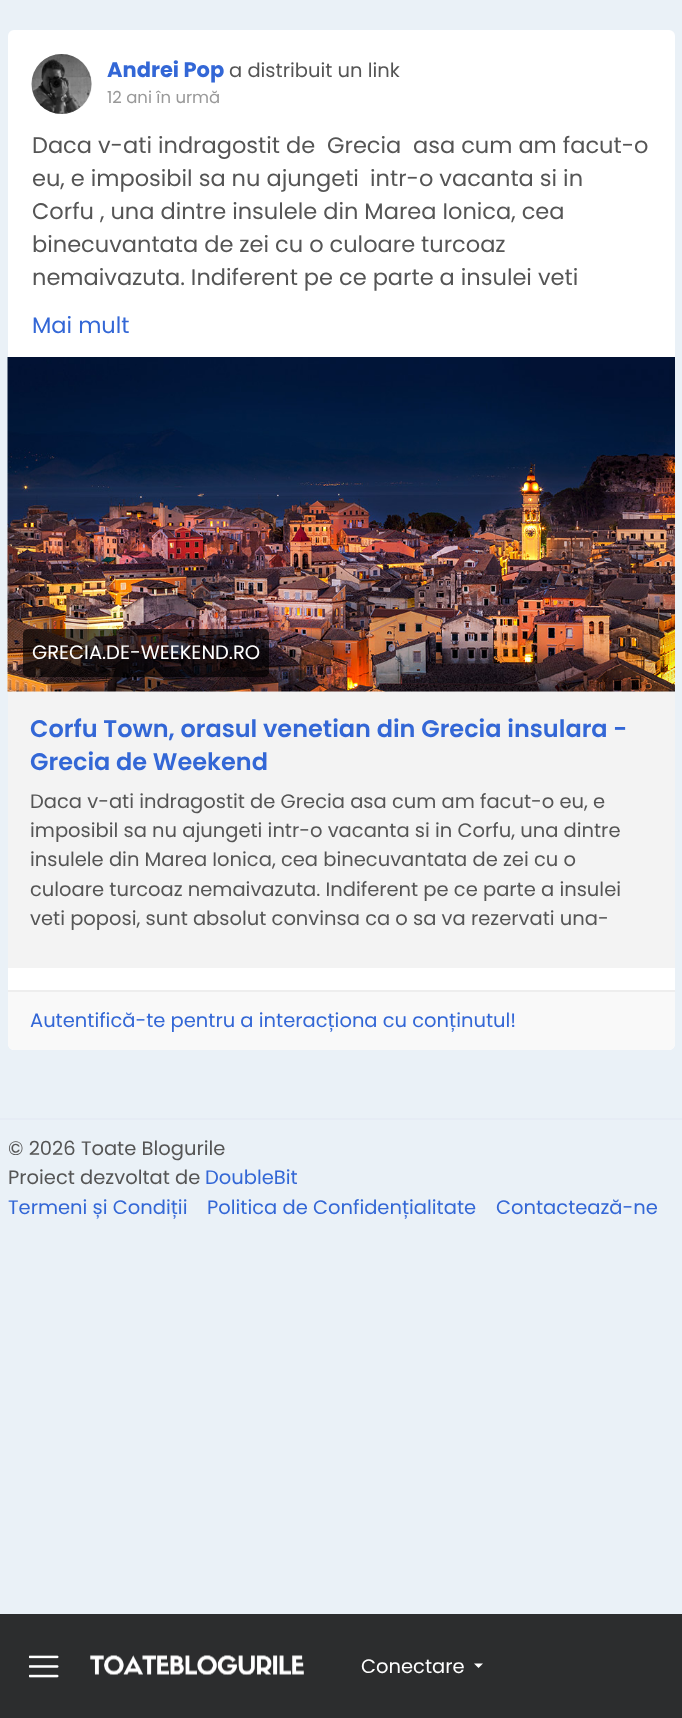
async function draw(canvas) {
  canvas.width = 682;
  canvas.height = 1718;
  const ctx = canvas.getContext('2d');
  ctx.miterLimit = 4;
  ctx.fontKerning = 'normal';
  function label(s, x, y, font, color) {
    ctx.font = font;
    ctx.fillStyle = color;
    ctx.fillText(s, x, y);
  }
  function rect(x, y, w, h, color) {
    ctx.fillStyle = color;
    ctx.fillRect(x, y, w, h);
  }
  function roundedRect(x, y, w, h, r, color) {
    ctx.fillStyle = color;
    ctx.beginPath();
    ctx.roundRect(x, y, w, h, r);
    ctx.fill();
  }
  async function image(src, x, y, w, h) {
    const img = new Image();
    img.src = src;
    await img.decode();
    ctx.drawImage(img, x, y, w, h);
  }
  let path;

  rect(0, 0, 682, 1718, '#eaf1f7');
  roundedRect(8, 30, 667, 1020, 6, '#fff');
  ctx.fillStyle = '#eee';
  ctx.beginPath();
  ctx.arc(62, 84, 30, 0, 2 * Math.PI);
  ctx.fill();
  await image('assets/img1.png', 31, 54, 61, 60);
  label('Andrei Pop', 107, 77, 'bold 21px Poppins', '#3367d6');
  label('a distribuit un link', 229, 77, '19.5px Poppins', '#555');
  label('12 ani în urmă', 107, 103, '16.5px Poppins', '#999');
  label('Daca v-ati indragostit de', 32, 153, '22.5px Poppins', '#555');
  label('Grecia', 327, 153, '22.5px Poppins', '#555');
  label('asa cum am facut-o', 413, 153, '22.5px Poppins', '#555');
  label('eu, e imposibil sa nu ajungeti', 32, 186, '22.5px Poppins', '#555');
  label('intr-o vacanta si in', 370, 186, '22.5px Poppins', '#555');
  label('Corfu , una dintre insulele din Marea Ionica, cea', 32, 219, '22.5px Poppins', '#555');
  label('binecuvantata de zei cu o culoare turcoaz', 32, 252, '22.5px Poppins', '#555');
  label('nemaivazuta. Indiferent pe ce parte a insulei veti', 32, 285, '22.5px Poppins', '#555');
  label('Mai mult', 32, 333, '22.5px Poppins', '#3367d6');
  rect(8, 692, 667, 276, '#f3f3f3');
  rect(8, 691, 667, 1, '#eee');
  await image('assets/img2.png', 7, 357, 668, 335);
  roundedRect(23, 629, 246, 48, 5, '#000000a6');
  label('GRECIA.DE-WEEKEND.RO', 32, 659, '19.5px Poppins', '#fff');
  label('Corfu Town, orasul venetian din Grecia insulara -', 30, 737, '600 24px Poppins', '#3367d6');
  label('Grecia de Weekend', 30, 770, '600 24px Poppins', '#3367d6');
  label('Daca v-ati indragostit de Grecia asa cum am facut-o eu, e', 30, 808, '19.5px Poppins', '#555');
  label('imposibil sa nu ajungeti intr-o vacanta si in Corfu, una dintre', 30, 837, '19.5px Poppins', '#555');
  label('insulele din Marea Ionica, cea binecuvantata de zei cu o', 30, 866, '19.5px Poppins', '#555');
  label('culoare turcoaz nemaivazuta. Indiferent pe ce parte a insulei', 30, 896, '19.5px Poppins', '#555');
  label('veti poposi, sunt absolut convinsa ca o sa va rezervati una-', 30, 925, '19.5px Poppins', '#555');
  ctx.fillStyle = '#f9f9f9';
  ctx.beginPath();
  ctx.roundRect(8, 990, 667, 60, [0, 0, 6, 6]);
  ctx.fill();
  rect(8, 990, 667, 2, '#eee');
  label('Autentifică-te pentru a interacționa cu conținutul!', 30, 1027, '19.5px Poppins', '#3367d6');
  rect(0, 1118, 682, 2, '#e6ecf5');
  label('© 2026 Toate Blogurile', 8, 1155, '19.5px Poppins', '#555');
  label('Proiect dezvoltat de', 8, 1184, '19.5px Poppins', '#555');
  label('DoubleBit', 205, 1184, '19.5px Poppins', '#3367d6');
  label('Termeni și Condiții', 8, 1214, '19.5px Poppins', '#3367d6');
  label('Politica de Confidențialitate', 207, 1214, '19.5px Poppins', '#3367d6');
  label('Contactează-ne', 496, 1214, '19.5px Poppins', '#3367d6');
  rect(0, 1614, 682, 104, '#2c2d2e');
  await image('assets/img3.png', 29, 1655, 30, 23);
  await image('assets/img4.png', 90, 1655, 214, 21);
  label('Conectare', 361, 1673, '19.5px Poppins', '#fff');
  path = new Path2D('M474 1663.5H483L478.5 1668Z');
  ctx.fill(path);
}

draw(document.querySelector('canvas'));
